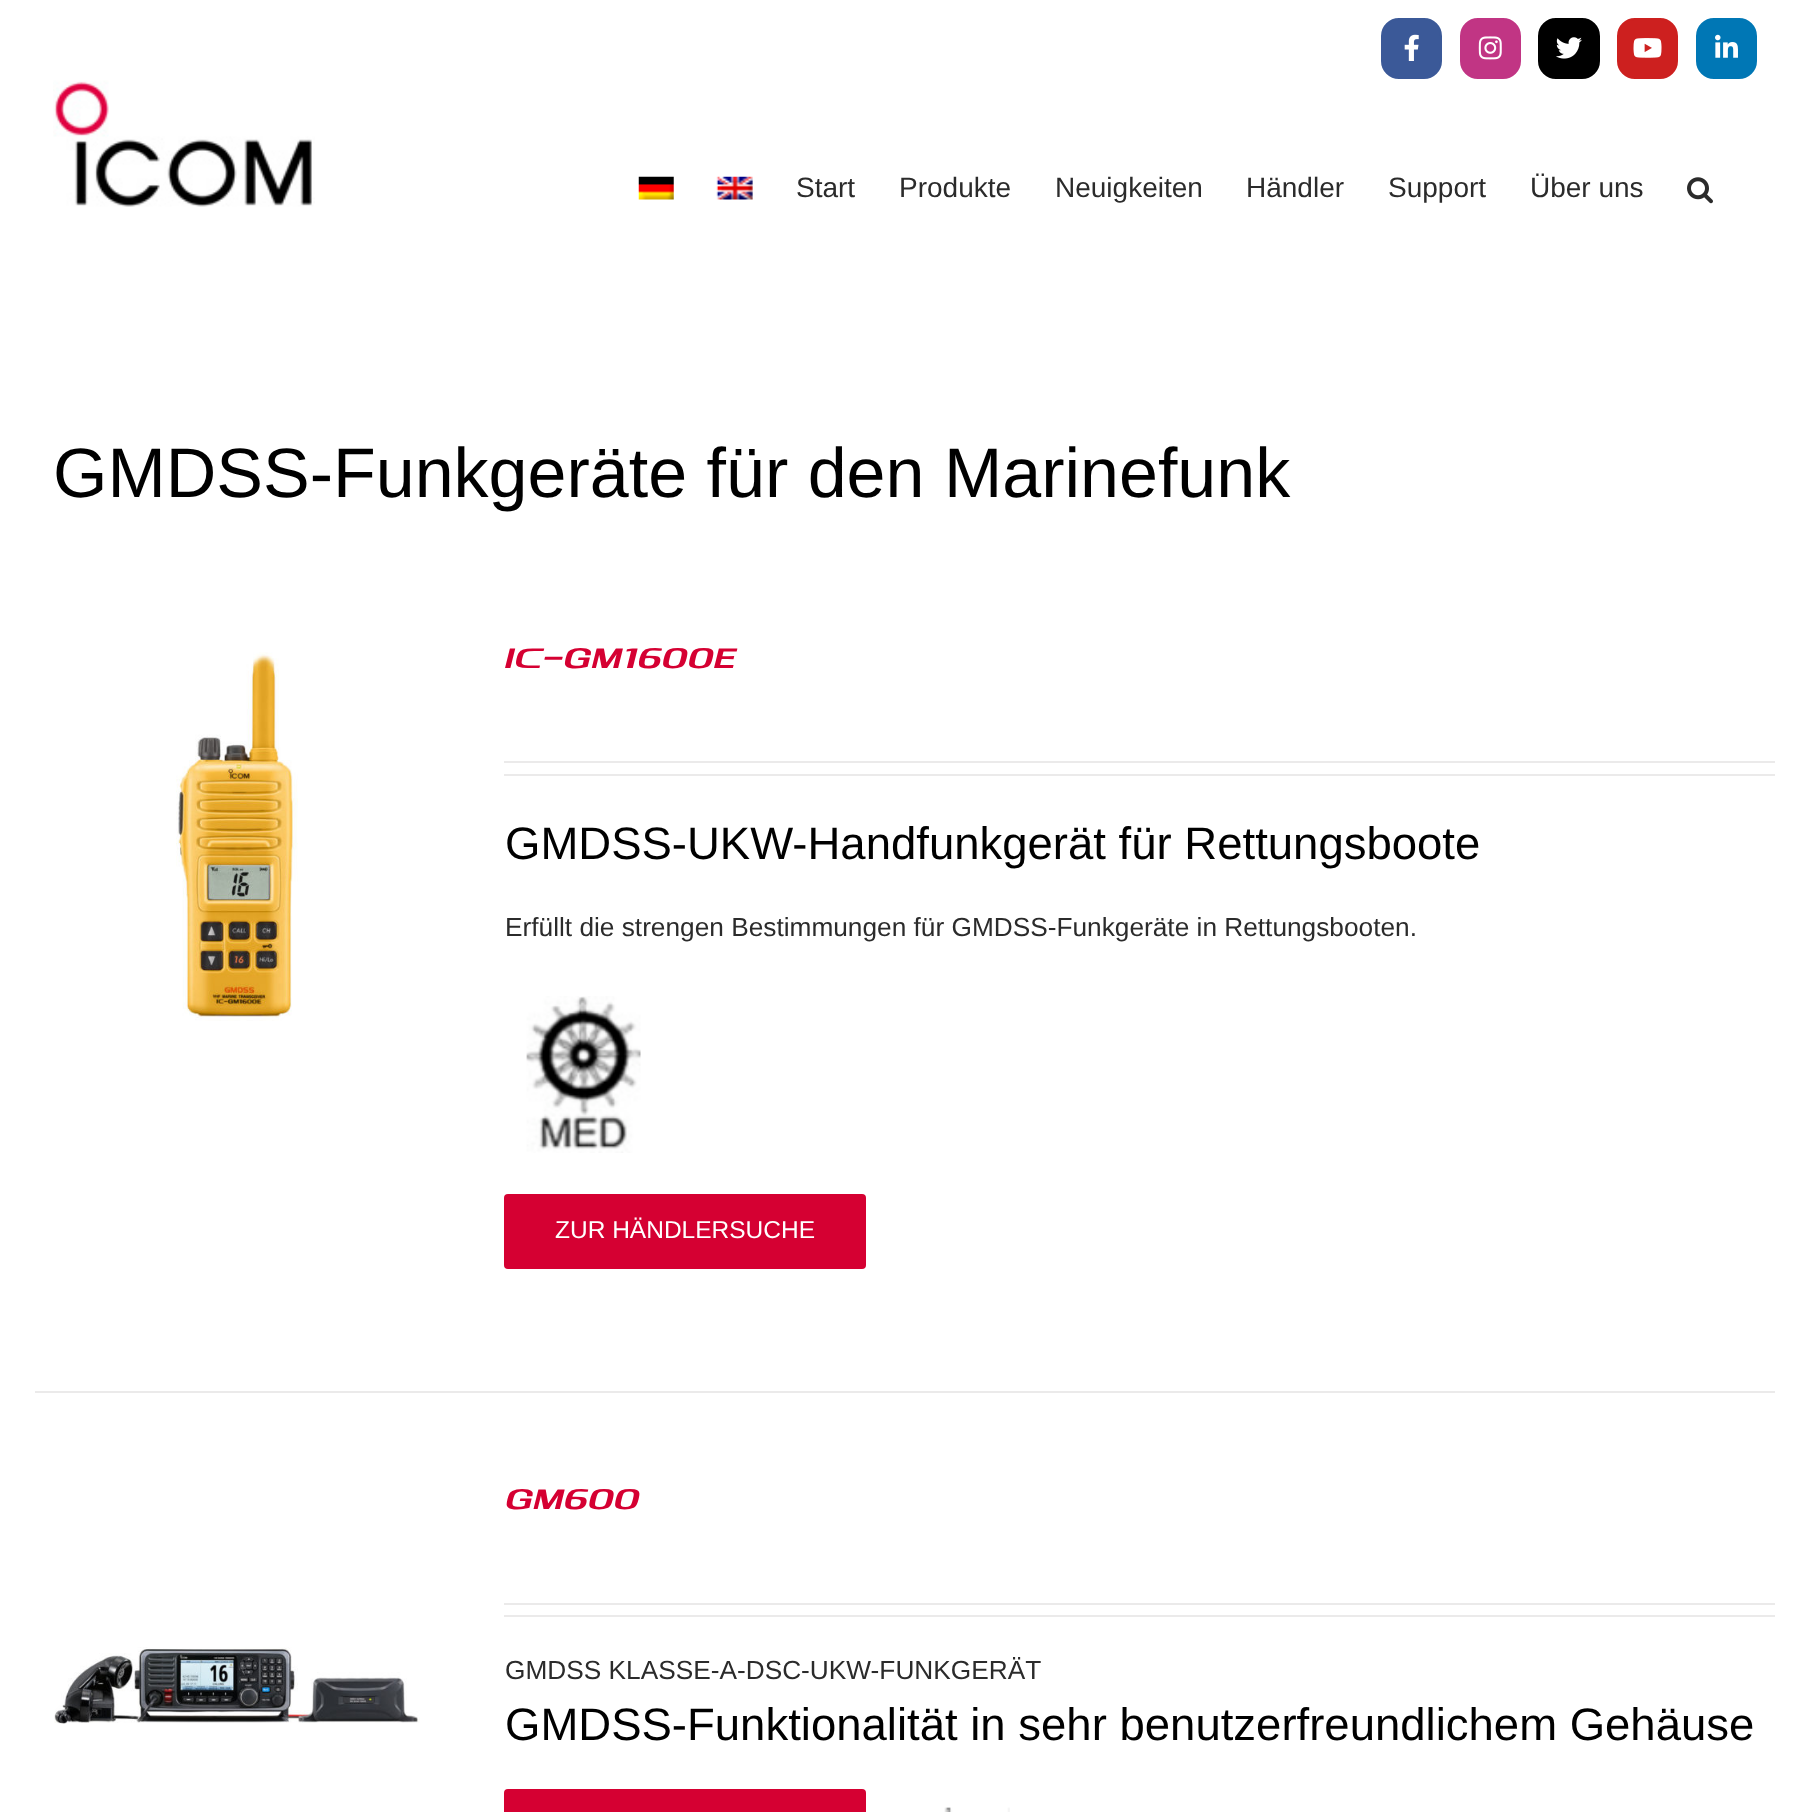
async function draw(canvas) {
  canvas.width = 1808;
  canvas.height = 1812;
  const ctx = canvas.getContext('2d');
  ctx.miterLimit = 4;
  ctx.fontKerning = 'normal';
  function label(s, x, y, font, color) {
    ctx.font = font;
    ctx.fillStyle = color;
    ctx.fillText(s, x, y);
  }
  function rect(x, y, w, h, color) {
    ctx.fillStyle = color;
    ctx.fillRect(x, y, w, h);
  }
  function roundedRect(x, y, w, h, r, color) {
    ctx.fillStyle = color;
    ctx.beginPath();
    ctx.roundRect(x, y, w, h, r);
    ctx.fill();
  }
  async function image(src, x, y, w, h) {
    const img = new Image();
    img.src = src;
    await img.decode();
    ctx.drawImage(img, x, y, w, h);
  }

  rect(0, 0, 1808, 1812, '#fff');
  ctx.fillStyle = '#3b5998';
  ctx.beginPath();
  ctx.roundRect(1382, 19, 59, 59, 17);
  ctx.fill();
  ctx.strokeStyle = '#3b5998';
  ctx.lineWidth = 2;
  ctx.stroke();
  await image('assets/img1.png', 1404, 34, 15, 27);
  ctx.fillStyle = '#c13584';
  ctx.beginPath();
  ctx.roundRect(1461, 19, 59, 59, 17);
  ctx.fill();
  ctx.strokeStyle = '#c13584';
  ctx.stroke();
  await image('assets/img2.png', 1478, 36, 24, 24);
  ctx.fillStyle = '#000';
  ctx.beginPath();
  ctx.roundRect(1539, 19, 60, 59, 17);
  ctx.fill();
  ctx.strokeStyle = '#000';
  ctx.stroke();
  await image('assets/img3.png', 1556, 37, 26, 22);
  ctx.fillStyle = '#cd201f';
  ctx.beginPath();
  ctx.roundRect(1618, 19, 59, 59, 17);
  ctx.fill();
  ctx.strokeStyle = '#cd201f';
  ctx.stroke();
  await image('assets/img4.png', 1633, 38, 29, 20);
  ctx.fillStyle = '#0077b5';
  ctx.beginPath();
  ctx.roundRect(1697, 19, 59, 59, 17);
  ctx.fill();
  ctx.strokeStyle = '#0077b5';
  ctx.stroke();
  await image('assets/img5.png', 1715, 34, 23, 24);
  await image('assets/img6.png', 53, 80, 262, 127);
  await image('assets/img7.png', 638, 176, 36, 24);
  await image('assets/img8.png', 716, 176, 37, 24);
  label('Start', 796, 197, '28px Liberation Sans', '#2b2b2b');
  label('Produkte', 899, 197, '28px Liberation Sans', '#2b2b2b');
  label('Neuigkeiten', 1055, 197, '28px Liberation Sans', '#2b2b2b');
  label('Händler', 1246, 197, '28px Liberation Sans', '#2b2b2b');
  label('Support', 1388, 197, '28px Liberation Sans', '#2b2b2b');
  label('Über uns', 1530, 197, '28px Liberation Sans', '#2b2b2b');
  await image('assets/img9.png', 1687, 177, 26, 27);
  label('GMDSS-Funkgeräte für den Marinefunk', 53, 497, '70px Liberation Sans', '#000');
  rect(35, 1391, 1740, 2, '#ebeaea');
  await image('assets/img10.png', 176, 652, 122, 369);
  label('IC-GM1600E', 505, 668, 'italic 500 24.5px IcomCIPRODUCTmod', '#d50032');
  rect(504, 761, 1271, 2, '#ebeaea');
  rect(504, 774, 1271, 2, '#ebeaea');
  label('GMDSS-UKW-Handfunkgerät für Rettungsboote', 505, 859, '45.5px Liberation Sans', '#000');
  label('Erfüllt die strengen Bestimmungen für GMDSS-Funkgeräte in Rettungsbooten.', 505, 936, '26.25px Liberation Sans', '#2b2b2b');
  await image('assets/img11.png', 526, 996, 115, 157);
  roundedRect(504, 1194, 362, 75, 4, '#d50032');
  label('ZUR HÄNDLERSUCHE', 555, 1238, '24.5px Liberation Sans', '#fff');
  label('GM600', 505, 1509, 'italic 500 24.5px IcomCIPRODUCTmod', '#d50032');
  await image('assets/img12.png', 54, 1647, 366, 77);
  rect(504, 1603, 1271, 2, '#ebeaea');
  rect(504, 1615, 1271, 2, '#ebeaea');
  label('GMDSS KLASSE-A-DSC-UKW-FUNKGERÄT', 505, 1679, '26.25px Liberation Sans', '#2b2b2b');
  label('GMDSS-Funktionalität in sehr benutzerfreundlichem Gehäuse', 505, 1740, '45.5px Liberation Sans', '#000');
  roundedRect(504, 1789, 362, 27, 4, '#d50032');
  await image('assets/img13.png', 944, 1807, 66, 5);
}

draw(document.querySelector('canvas'));
